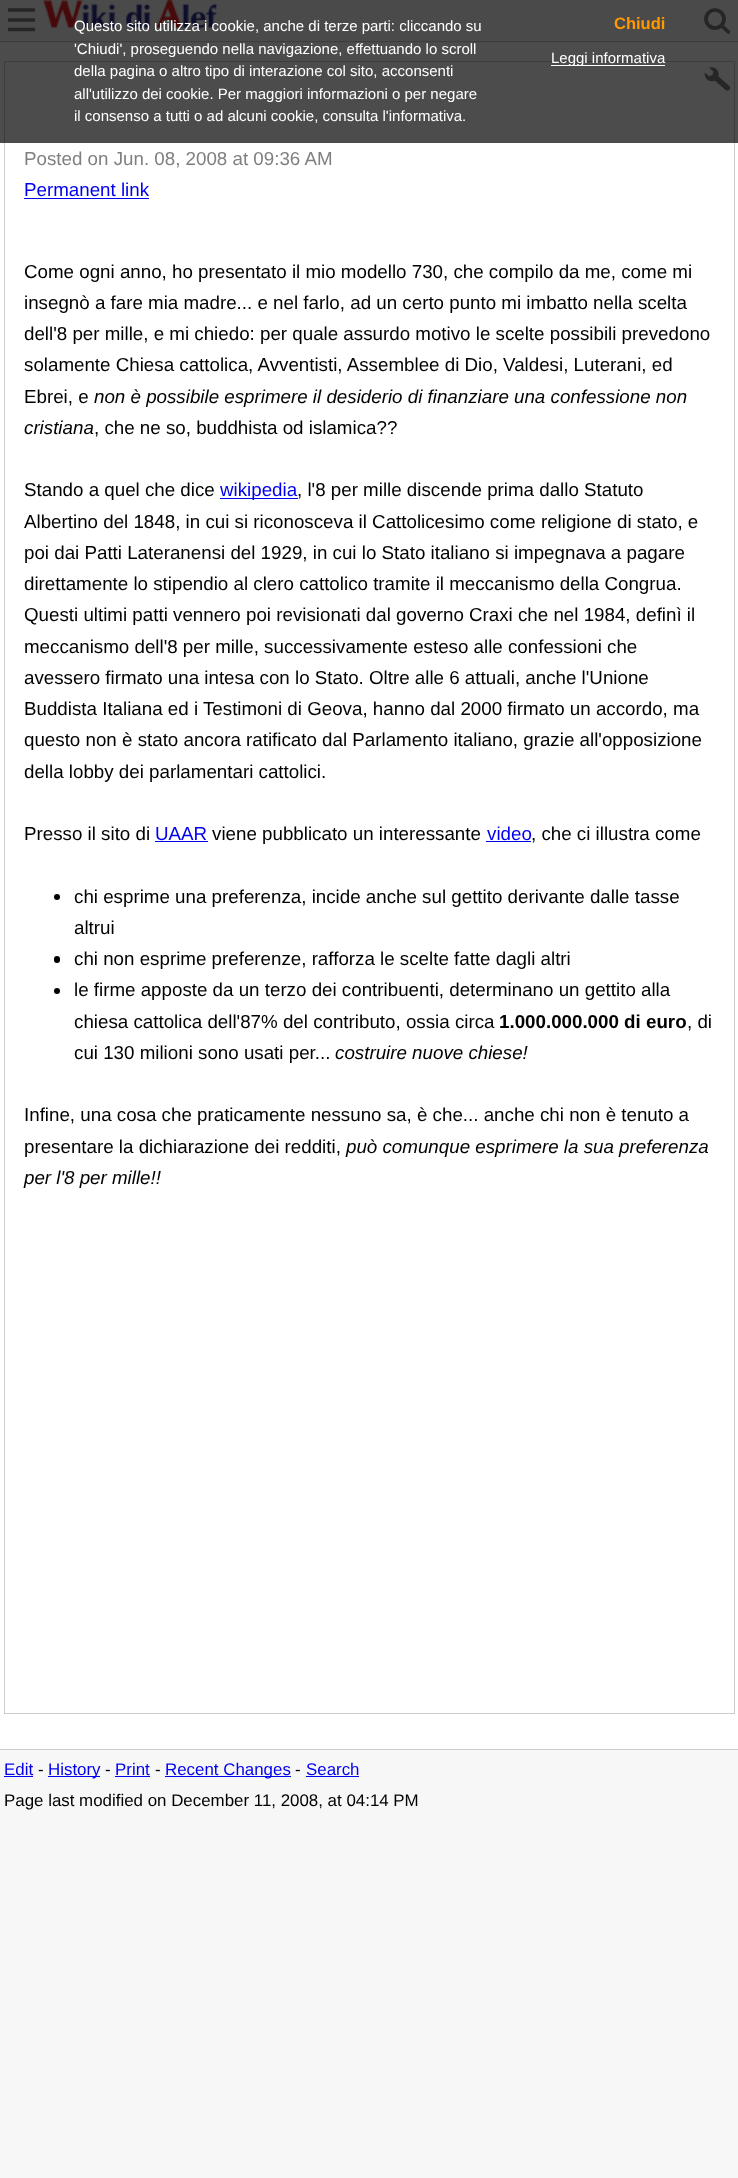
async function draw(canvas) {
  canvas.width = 738;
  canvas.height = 2178;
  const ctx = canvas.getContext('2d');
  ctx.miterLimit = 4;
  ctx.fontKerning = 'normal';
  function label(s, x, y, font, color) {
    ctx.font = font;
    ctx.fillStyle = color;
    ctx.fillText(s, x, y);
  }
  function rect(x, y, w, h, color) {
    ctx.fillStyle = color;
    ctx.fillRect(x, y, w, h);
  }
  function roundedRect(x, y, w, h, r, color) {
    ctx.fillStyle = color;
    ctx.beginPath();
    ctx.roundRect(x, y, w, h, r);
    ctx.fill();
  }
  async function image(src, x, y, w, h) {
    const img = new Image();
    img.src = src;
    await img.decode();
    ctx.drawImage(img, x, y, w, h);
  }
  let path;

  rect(0, 0, 738, 2178, '#f7f7f7');
  rect(0, 41, 738, 1, '#ccc');
  await image('assets/img1.png', 42, 0, 176, 29);
  ctx.save();
  ctx.beginPath();
  ctx.rect(8, 8, 27, 27);
  ctx.clip();
  path = new Path2D('M7.5 10H35M7.5 20H35M7.5 29.5H35');
  ctx.strokeStyle = '#7f7f7f';
  ctx.lineWidth = 3.7;
  ctx.stroke(path);
  ctx.restore();
  ctx.beginPath();
  ctx.arc(715, 19, 9, 0, 2 * Math.PI);
  ctx.strokeStyle = '#7c7c7c';
  ctx.lineWidth = 3.7;
  ctx.stroke();
  path = new Path2D('M729.5 33L722 26');
  ctx.stroke(path);
  rect(0, 43, 738, 1706, '#fff');
  ctx.strokeStyle = '#ccc';
  ctx.lineWidth = 1;
  ctx.strokeRect(4.5, 61.5, 730, 1652);
  await image('assets/img2.png', 704, 67, 26, 24);
  rect(0, 0, 738, 143, '#000000b3');
  label('Questo sito utilizza i cookie, anche di terze parti: cliccando su', 74, 31, '15px Liberation Sans', '#fff');
  label('\'Chiudi\', proseguendo nella navigazione, effettuando lo scroll', 74, 54, '15px Liberation Sans', '#fff');
  label('della pagina o altro tipo di interazione col sito, acconsenti', 74, 76, '15px Liberation Sans', '#fff');
  label('all\'utilizzo dei cookie. Per maggiori informazioni o per negare', 74, 99, '15px Liberation Sans', '#fff');
  label('il consenso a tutti o ad alcuni cookie, consulta l\'informativa.', 74, 121, '15px Liberation Sans', '#fff');
  label('Chiudi', 614, 29, 'bold 16.5px Liberation Sans', '#f90');
  rect(551, 65, 114, 1, '#fff');
  label('Leggi informativa', 551, 63, '15px Liberation Sans', '#fff');
  label('Posted on Jun. 08, 2008 at 09:36 AM', 24, 165, '18.75px Liberation Sans', '#808080');
  label('Permanent link', 24, 196, '18.75px Liberation Sans', '#00e');
  rect(24, 198, 125, 1, '#00e');
  label('Come ogni anno, ho presentato il mio modello 730, che compilo da me, come mi', 24, 278, '18.75px Liberation Sans', '#000');
  label('insegnò a fare mia madre... e nel farlo, ad un certo punto mi imbatto nella scelta', 24, 309, '18.75px Liberation Sans', '#000');
  label('dell\'8 per mille, e mi chiedo: per quale assurdo motivo le scelte possibili prevedono', 24, 340, '18.75px Liberation Sans', '#000');
  label('solamente Chiesa cattolica, Avventisti, Assemblee di Dio, Valdesi, Luterani, ed', 24, 371, '18.75px Liberation Sans', '#000');
  label('Ebrei, e', 24, 403, '18.75px Liberation Sans', '#000');
  label('non è possibile esprimere il desiderio di finanziare una confessione non', 94, 403, 'italic 18.75px Liberation Sans', '#000');
  label('cristiana', 24, 434, 'italic 18.75px Liberation Sans', '#000');
  label(', che ne so, buddhista od islamica??', 94, 434, '18.75px Liberation Sans', '#000');
  label('Stando a quel che dice', 24, 496, '18.75px Liberation Sans', '#000');
  rect(220, 498, 78, 1, '#00e');
  label('wikipedia', 220, 496, '18.75px Liberation Sans', '#00e');
  label(', l\'8 per mille discende prima dallo Statuto', 297, 496, '18.75px Liberation Sans', '#000');
  label('Albertino del 1848, in cui si riconosceva il Cattolicesimo come religione di stato, e', 24, 528, '18.75px Liberation Sans', '#000');
  label('poi dai Patti Lateranensi del 1929, in cui lo Stato italiano si impegnava a pagare', 24, 559, '18.75px Liberation Sans', '#000');
  label('direttamente lo stipendio al clero cattolico tramite il meccanismo della Congrua.', 24, 590, '18.75px Liberation Sans', '#000');
  label('Questi ultimi patti vennero poi revisionati dal governo Craxi che nel 1984, definì il', 24, 621, '18.75px Liberation Sans', '#000');
  label('meccanismo dell\'8 per mille, successivamente esteso alle confessioni che', 24, 653, '18.75px Liberation Sans', '#000');
  label('avessero firmato una intesa con lo Stato. Oltre alle 6 attuali, anche l\'Unione', 24, 684, '18.75px Liberation Sans', '#000');
  label('Buddista Italiana ed i Testimoni di Geova, hanno dal 2000 firmato un accordo, ma', 24, 715, '18.75px Liberation Sans', '#000');
  label('questo non è stato ancora ratificato dal Parlamento italiano, grazie all\'opposizione', 24, 746, '18.75px Liberation Sans', '#000');
  label('della lobby dei parlamentari cattolici.', 24, 778, '18.75px Liberation Sans', '#000');
  label('Presso il sito di', 24, 840, '18.75px Liberation Sans', '#000');
  label('UAAR', 155, 840, '18.75px Liberation Sans', '#00e');
  rect(155, 841, 53, 1, '#00e');
  label('viene pubblicato un interessante', 212, 840, '18.75px Liberation Sans', '#000');
  label('video', 487, 840, '18.75px Liberation Sans', '#00e');
  rect(486, 841, 45, 1, '#00e');
  label(', che ci illustra come', 531, 840, '18.75px Liberation Sans', '#000');
  ctx.beginPath();
  ctx.arc(57, 897, 3, 0, 2 * Math.PI);
  ctx.fill();
  label('chi esprime una preferenza, incide anche sul gettito derivante dalle tasse', 74, 903, '18.75px Liberation Sans', '#000');
  label('altrui', 74, 934, '18.75px Liberation Sans', '#000');
  roundedRect(54, 956, 6, 7, 3, '#000');
  label('chi non esprime preferenze, rafforza le scelte fatte dagli altri', 74, 965, '18.75px Liberation Sans', '#000');
  ctx.beginPath();
  ctx.arc(57, 991, 3, 0, 2 * Math.PI);
  ctx.fill();
  label('le firme apposte da un terzo dei contribuenti, determinano un gettito alla', 74, 996, '18.75px Liberation Sans', '#000');
  label('chiesa cattolica dell\'87% del contributo, ossia circa', 74, 1028, '18.75px Liberation Sans', '#000');
  label('1.000.000.000 di euro', 499, 1028, 'bold 18.75px Liberation Sans', '#000');
  label(', di', 687, 1028, '18.75px Liberation Sans', '#000');
  label('cui 130 milioni sono usati per...', 74, 1059, '18.75px Liberation Sans', '#000');
  label('costruire nuove chiese!', 335, 1059, 'italic 18.75px Liberation Sans', '#000');
  label('Infine, una cosa che praticamente nessuno sa, è che... anche chi non è tenuto a', 24, 1121, '18.75px Liberation Sans', '#000');
  label('presentare la dichiarazione dei redditi,', 24, 1153, '18.75px Liberation Sans', '#000');
  label('può comunque esprimere la sua preferenza', 346, 1153, 'italic 18.75px Liberation Sans', '#000');
  label('per l\'8 per mille!!', 24, 1184, 'italic 18.75px Liberation Sans', '#000');
  rect(0, 1749, 738, 1, '#ccc');
  label('Edit', 4, 1775, '16.9px Liberation Sans', '#00e');
  rect(4, 1776, 29, 1, '#00e');
  label('-', 38, 1775, '16.9px Liberation Sans', '#000');
  rect(48, 1776, 52, 1, '#00e');
  label('History', 48, 1775, '16.9px Liberation Sans', '#00e');
  label('-', 105, 1775, '16.9px Liberation Sans', '#000');
  label('Print', 115, 1775, '16.9px Liberation Sans', '#00e');
  rect(115, 1776, 35, 1, '#00e');
  label('-', 155, 1775, '16.9px Liberation Sans', '#000');
  rect(165, 1776, 126, 1, '#00e');
  label('Recent Changes', 165, 1775, '16.9px Liberation Sans', '#00e');
  label('-', 295, 1775, '16.9px Liberation Sans', '#000');
  label('Search', 306, 1775, '16.9px Liberation Sans', '#00e');
  rect(306, 1776, 53, 1, '#00e');
  label('Page last modified on December 11, 2008, at 04:14 PM', 4, 1806, '16.9px Liberation Sans', '#000');
}

draw(document.querySelector('canvas'));
